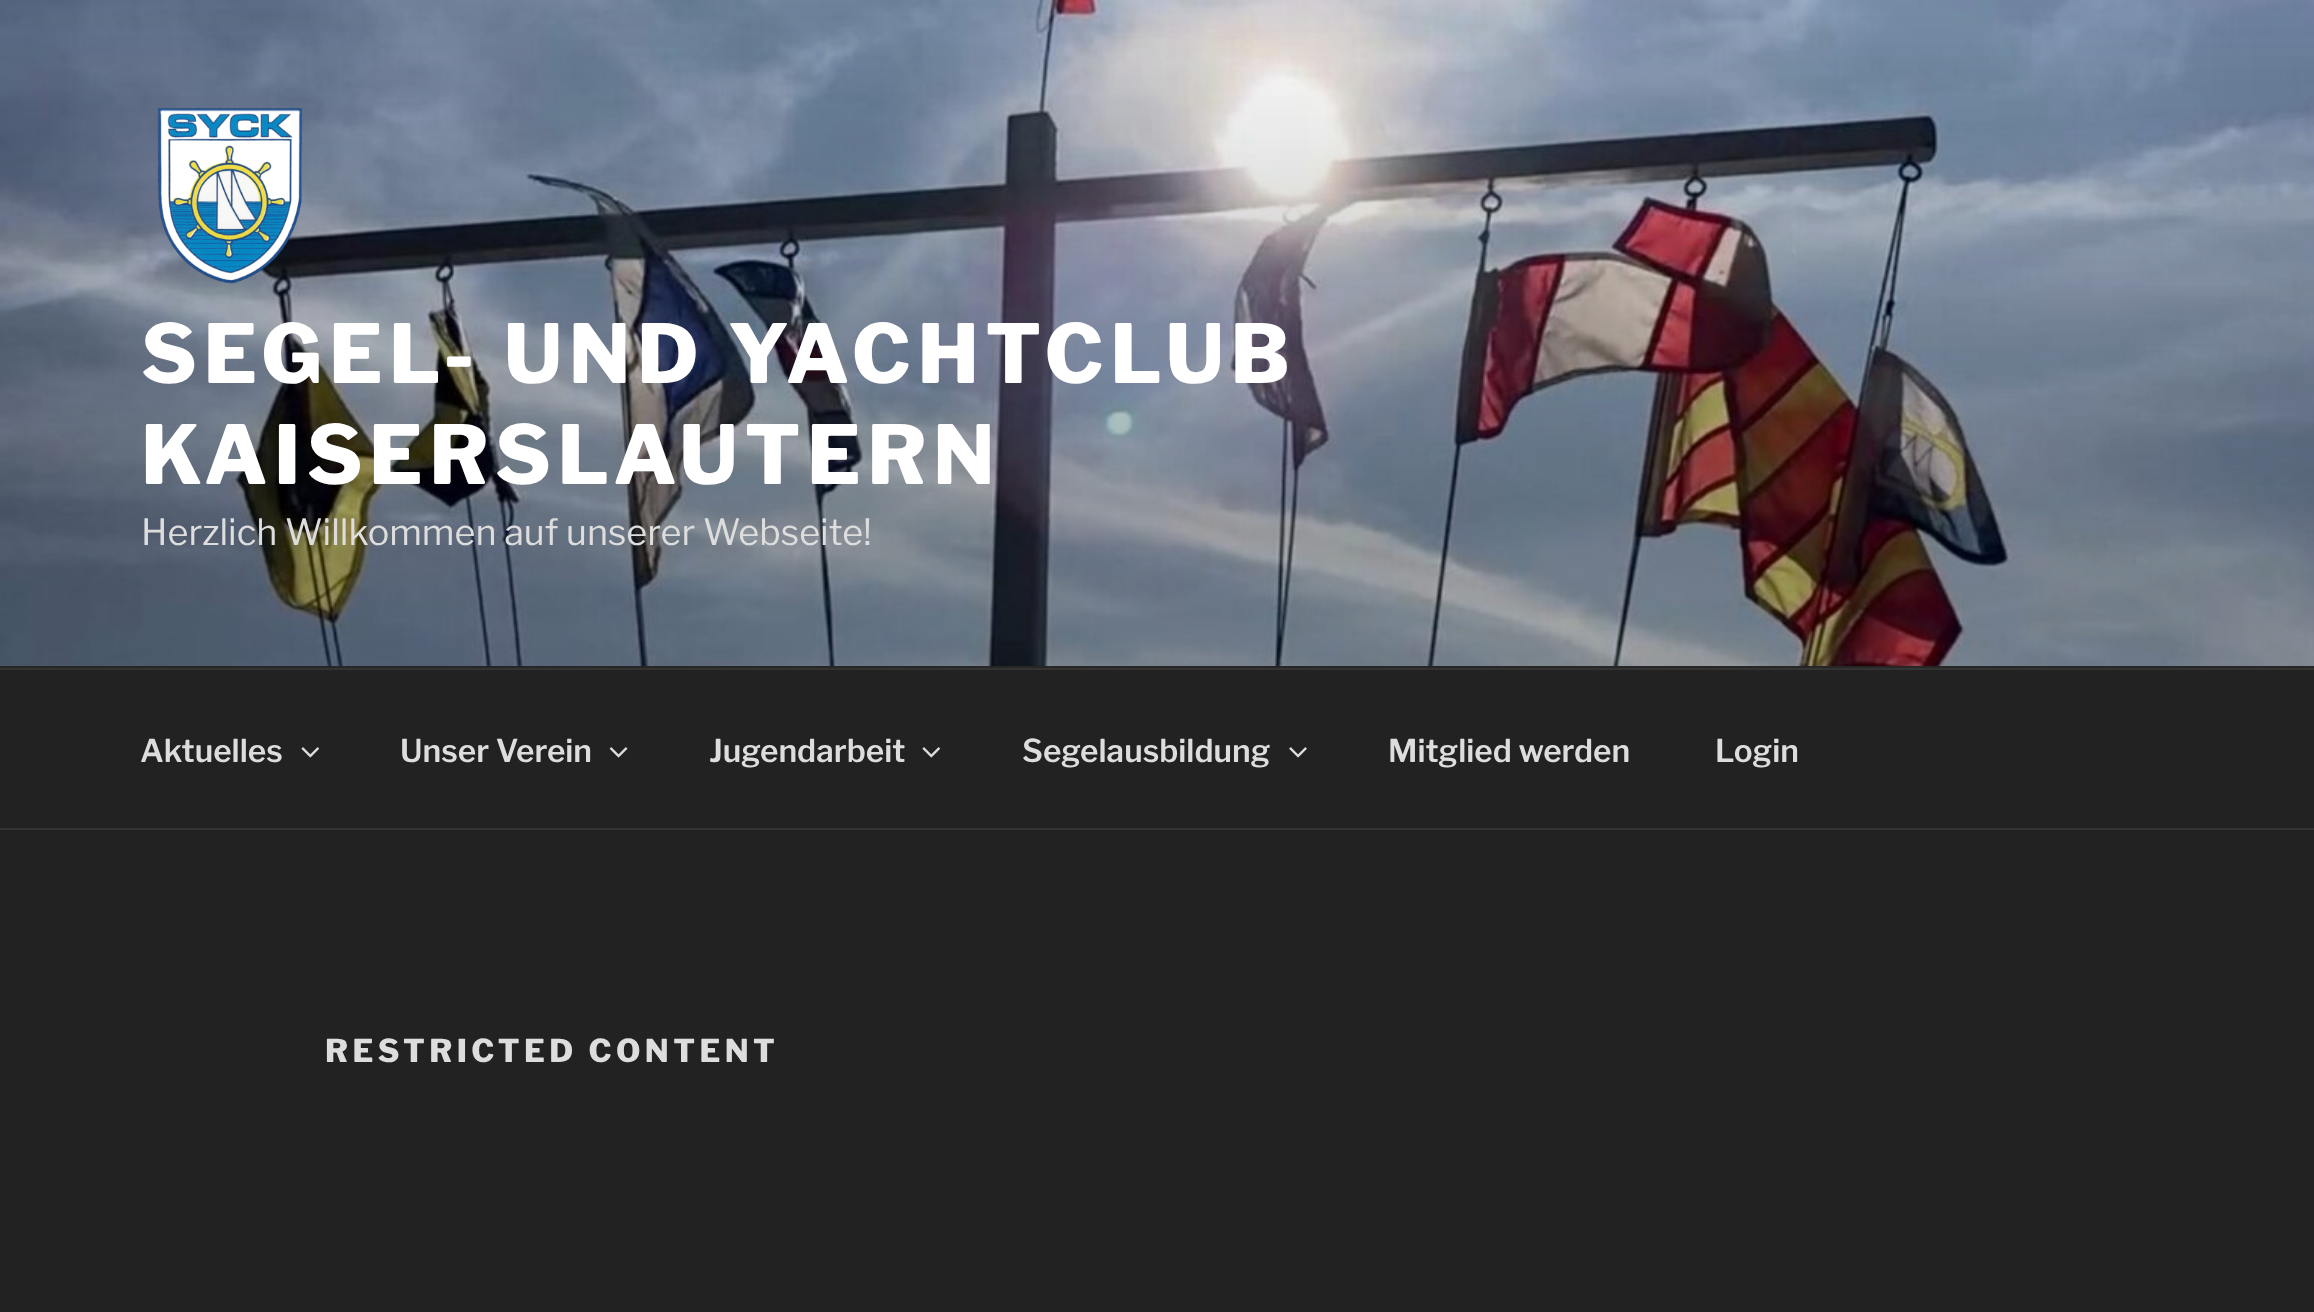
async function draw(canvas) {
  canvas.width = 2314;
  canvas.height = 1312;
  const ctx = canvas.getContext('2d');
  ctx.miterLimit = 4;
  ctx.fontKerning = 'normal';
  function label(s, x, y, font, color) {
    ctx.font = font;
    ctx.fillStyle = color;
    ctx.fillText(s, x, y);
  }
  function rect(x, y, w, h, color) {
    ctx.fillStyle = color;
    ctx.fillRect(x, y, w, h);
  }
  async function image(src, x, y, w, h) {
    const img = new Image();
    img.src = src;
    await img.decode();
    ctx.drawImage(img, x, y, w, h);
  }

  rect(0, 0, 2314, 1312, '#222');
  rect(0, 666, 2314, 2, '#262626');
  await image('assets/img1.png', 0, 0, 2314, 666);
  await image('assets/img2.png', 157, 108, 146, 176);
  ctx.letterSpacing = '6.5px';
  label('SEGEL- UND YACHTCLUB', 141, 383, '100 81px Libre Franklin', '#fff');
  label('KAISERSLAUTERN', 141, 484, '100 81px Libre Franklin', '#fff');
  ctx.letterSpacing = '0px';
  label('Herzlich Willkommen auf unserer Webseite!', 141, 545, '100 36px "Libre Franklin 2"', '#ddd');
  rect(0, 668, 2314, 2, '#333');
  rect(0, 828, 2314, 2, '#333');
  label('Aktuelles', 140, 762, '100 31.5px "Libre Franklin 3"', '#ddd');
  await image('assets/img3.png', 301, 747, 18, 11);
  label('Unser Verein', 400, 762, '100 31.5px "Libre Franklin 3"', '#ddd');
  await image('assets/img4.png', 609, 747, 19, 11);
  label('Jugendarbeit', 709, 762, '100 31.5px "Libre Franklin 3"', '#ddd');
  await image('assets/img3.png', 922, 747, 18, 11);
  label('Segelausbildung', 1022, 762, '100 31.5px "Libre Franklin 3"', '#ddd');
  await image('assets/img5.png', 1289, 747, 18, 11);
  label('Mitglied werden', 1388, 762, '100 31.5px "Libre Franklin 3"', '#ddd');
  label('Login', 1715, 762, '100 31.5px "Libre Franklin 3"', '#ddd');
  ctx.letterSpacing = '4.4px';
  label('RESTRICTED CONTENT', 325, 1062, '100 31.5px Libre Franklin', '#ddd');
}

draw(document.querySelector('canvas'));
